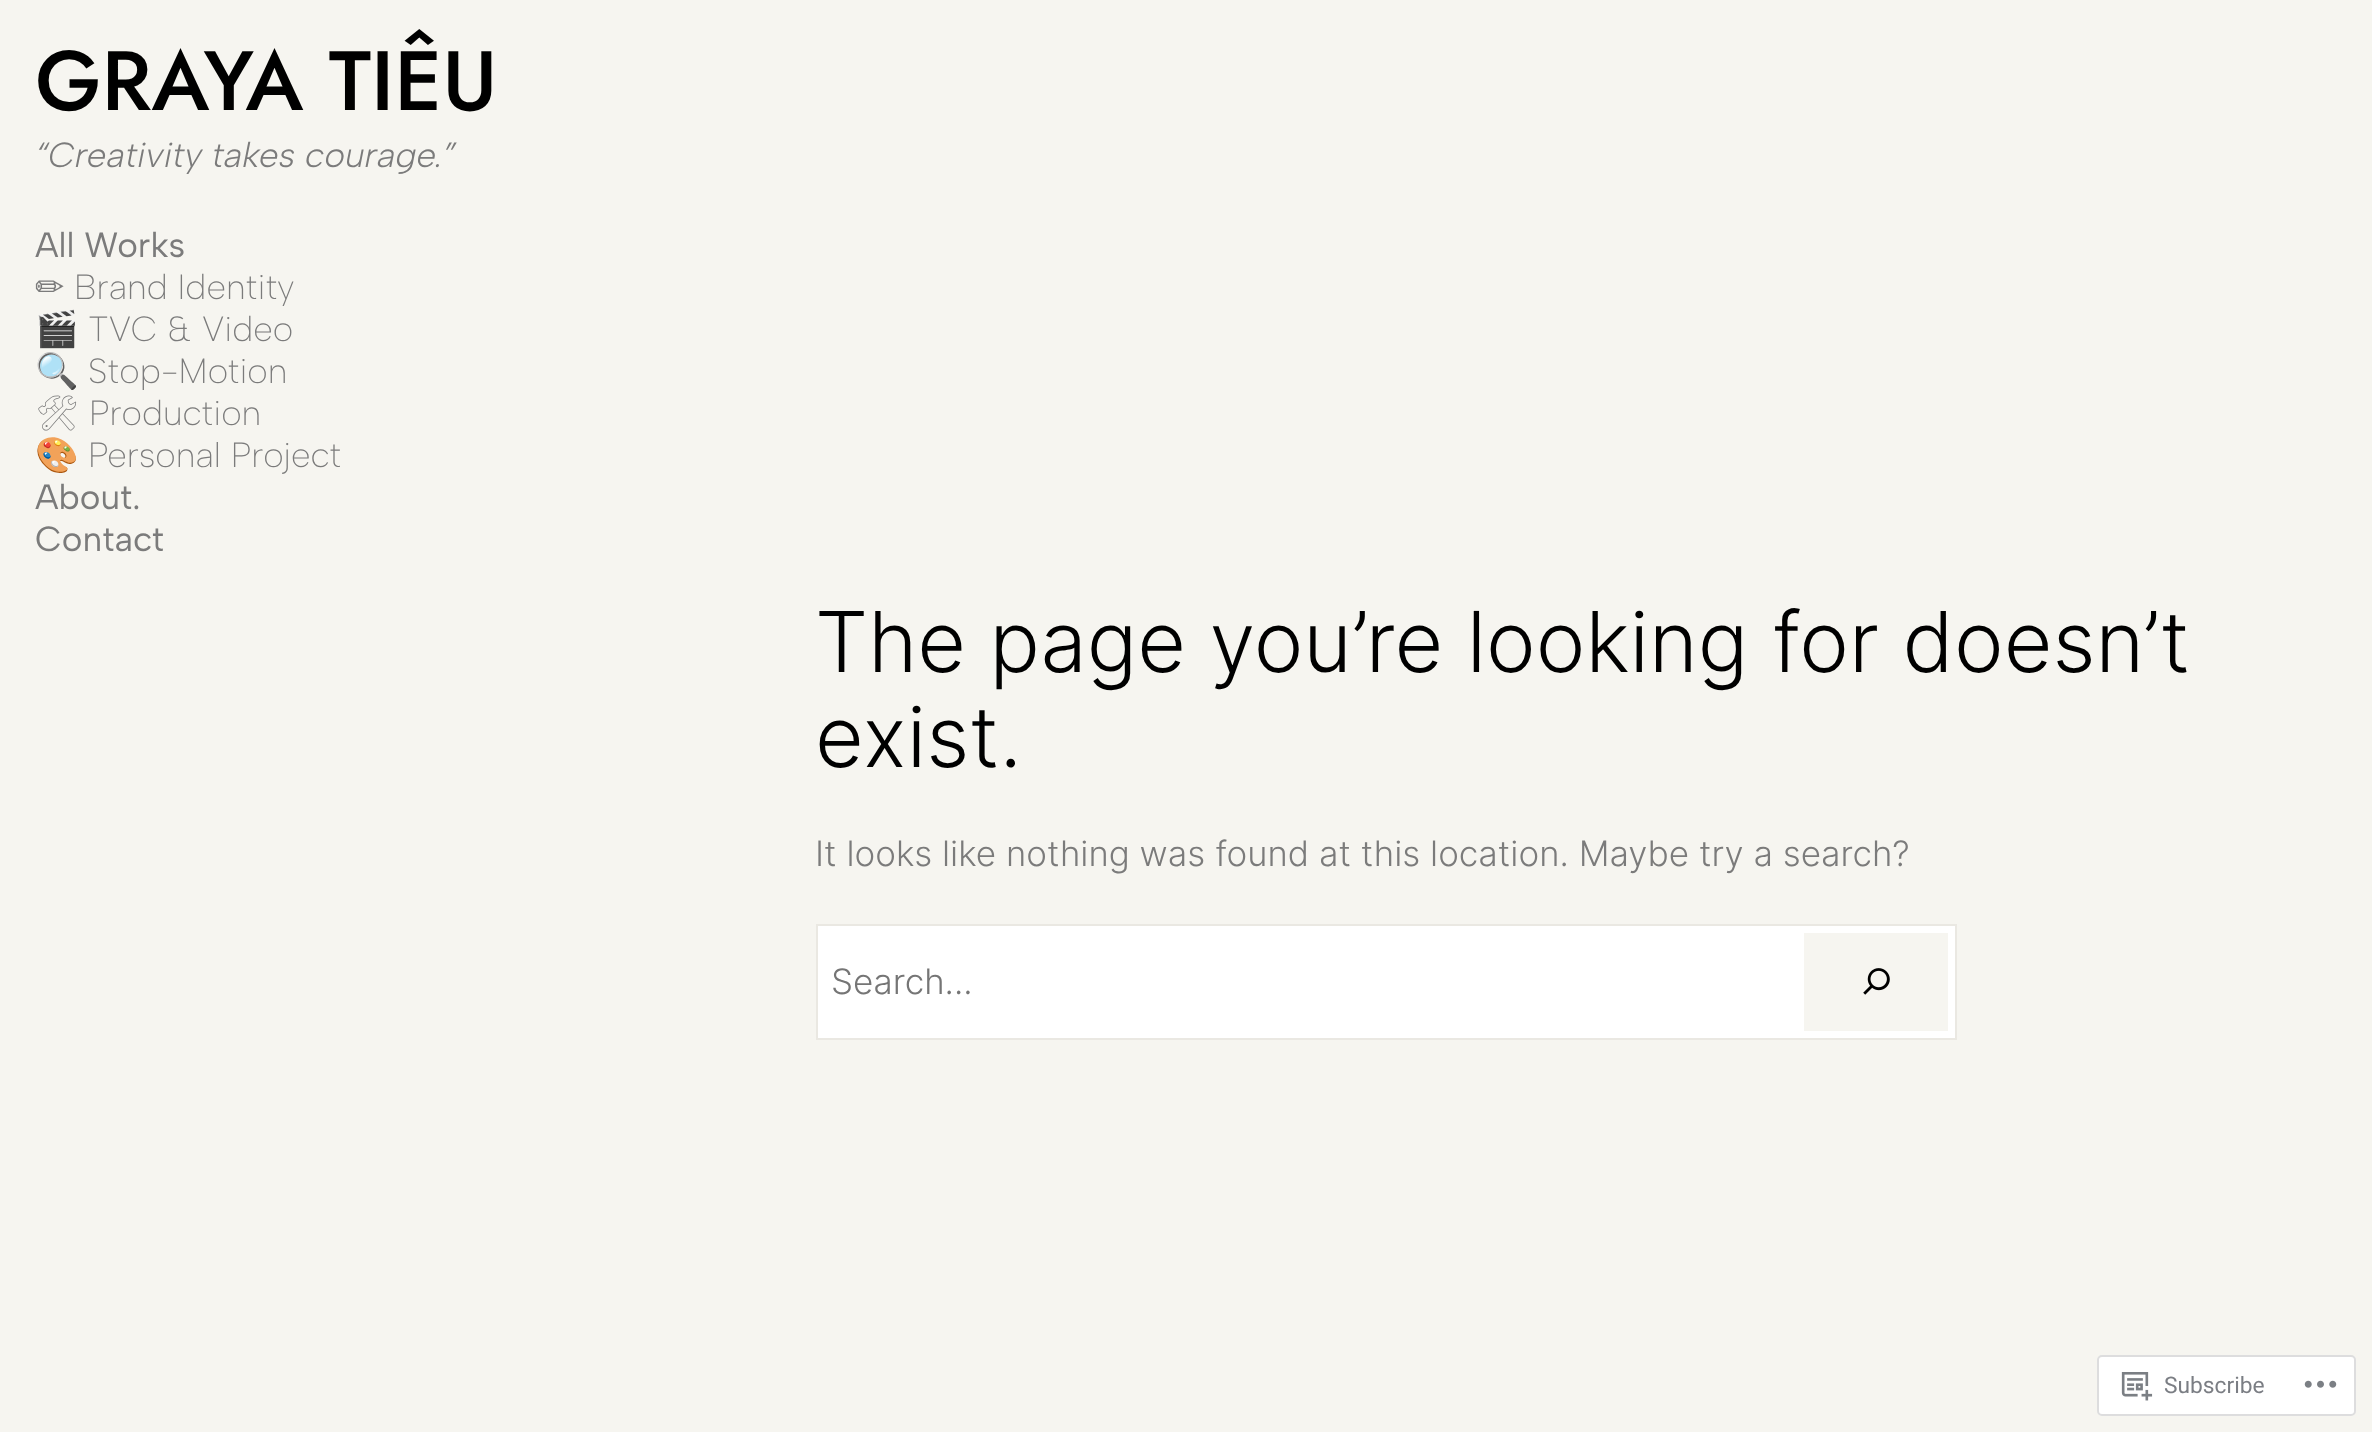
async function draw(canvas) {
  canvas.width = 2372;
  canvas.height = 1432;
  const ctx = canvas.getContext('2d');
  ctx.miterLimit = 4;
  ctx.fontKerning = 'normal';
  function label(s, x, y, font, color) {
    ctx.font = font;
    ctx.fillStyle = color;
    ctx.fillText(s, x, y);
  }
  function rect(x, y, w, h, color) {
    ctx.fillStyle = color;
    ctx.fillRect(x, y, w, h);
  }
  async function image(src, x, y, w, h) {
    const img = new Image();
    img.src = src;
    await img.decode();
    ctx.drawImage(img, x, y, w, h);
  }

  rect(0, 0, 2372, 1432, '#f6f5f0');
  label('GRAYA TIÊU', 35, 110, '500 84px Jost', '#000');
  label('“Creativity takes courage.”', 35, 167, 'italic 300 35px Albert Sans', '#7b7b7b');
  label('All Works', 35, 257, '35px Albert Sans', '#7b7b7b');
  label('✏', 35, 299, '35px DejaVu Sans', '#7b7b7b');
  label('Brand Identity', 74, 299, '200 35px Albert Sans', '#7b7b7b');
  label('🎬', 35, 341, '35px Noto Color Emoji', '#7b7b7b');
  label('TVC & Video', 88, 341, '200 35px Albert Sans', '#7b7b7b');
  label('🔍', 35, 383, '35px Noto Color Emoji', '#7b7b7b');
  label('Stop-Motion', 88, 383, '200 35px Albert Sans', '#7b7b7b');
  label('🛠', 35, 425, '300 35px Noto Emoji', '#7b7b7b');
  label('Production', 89, 425, '200 35px Albert Sans', '#7b7b7b');
  label('🎨', 35, 467, '35px Noto Color Emoji', '#7b7b7b');
  label('Personal Project', 88, 467, '200 35px Albert Sans', '#7b7b7b');
  label('About.', 35, 509, '35px Albert Sans', '#7b7b7b');
  label('Contact', 35, 551, '35px Albert Sans', '#7b7b7b');
  label('The page you’re looking for doesn’t', 815, 672, '300 84px Inter', '#000');
  label('exist.', 815, 767, '300 84px Inter', '#000');
  label('It looks like nothing was found at this location. Maybe try a search?', 815, 866, '300 35px Inter', '#7b7b7b');
  ctx.fillStyle = '#fff';
  ctx.beginPath();
  ctx.rect(817, 925, 1139, 114);
  ctx.fill();
  ctx.strokeStyle = '#eae8e2';
  ctx.lineWidth = 2;
  ctx.stroke();
  label('Search...', 831, 994, '300 35px Inter', '#757575');
  rect(1804, 933, 144, 98, '#f6f5f0');
  await image('assets/img1.png', 1863, 968, 27, 27);
  ctx.fillStyle = '#fff';
  ctx.beginPath();
  ctx.roundRect(2098, 1356, 257, 59, 4);
  ctx.fill();
  ctx.strokeStyle = '#ddddde';
  ctx.stroke();
  await image('assets/img2.png', 2121, 1372, 32, 29);
  label('Subscribe', 2164, 1393, '22.75px Roboto', '#7b7e84');
  await image('assets/img3.png', 2304, 1380, 33, 8);
}

draw(document.querySelector('canvas'));
